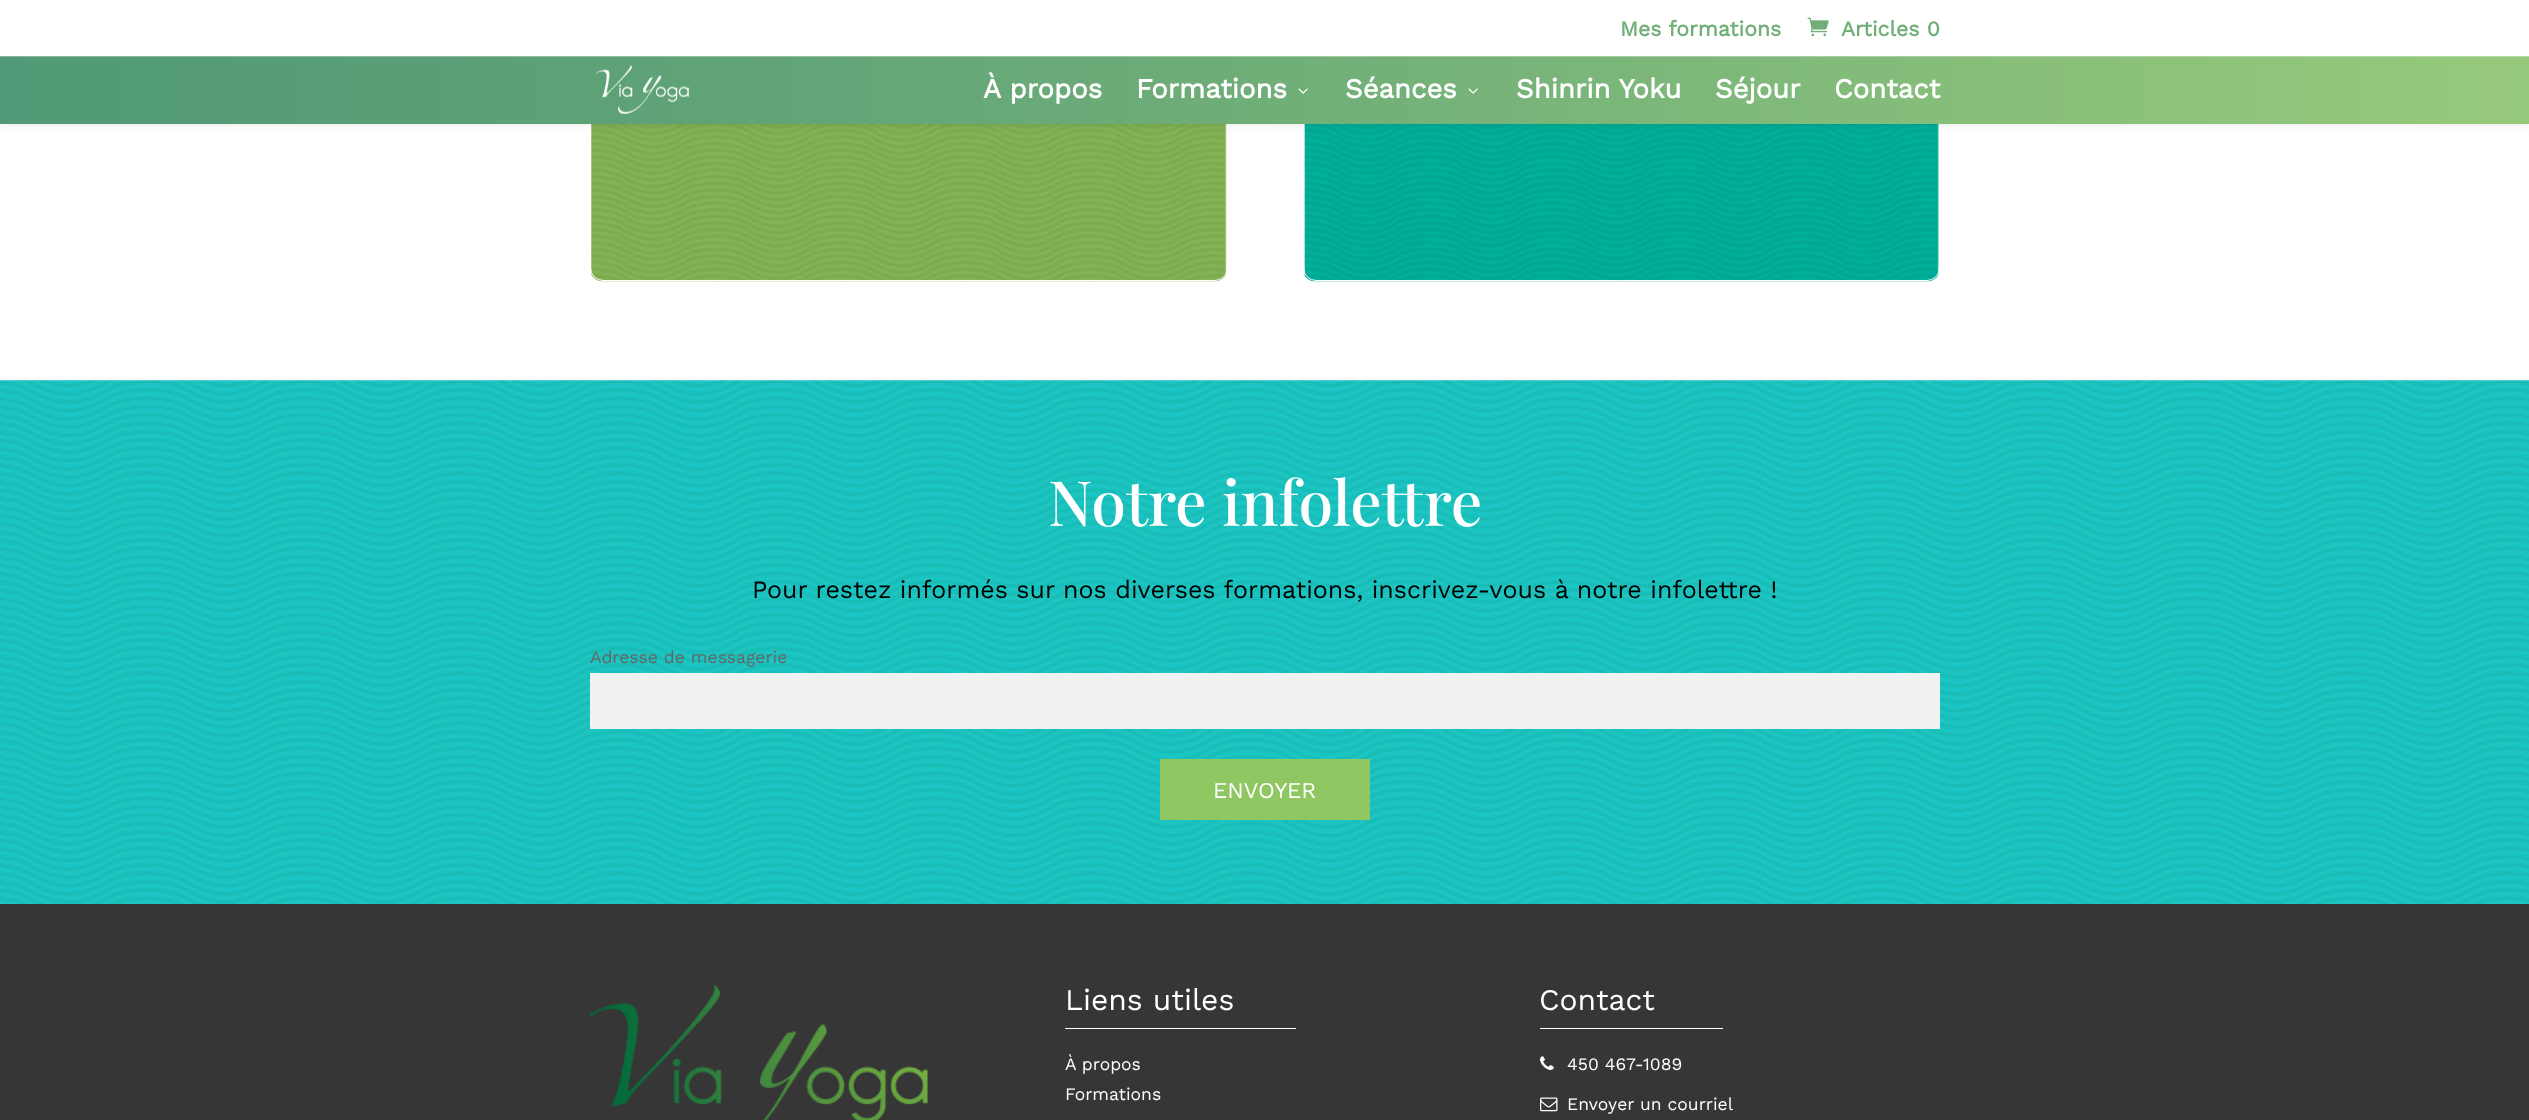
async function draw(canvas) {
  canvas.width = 2529;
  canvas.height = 1120;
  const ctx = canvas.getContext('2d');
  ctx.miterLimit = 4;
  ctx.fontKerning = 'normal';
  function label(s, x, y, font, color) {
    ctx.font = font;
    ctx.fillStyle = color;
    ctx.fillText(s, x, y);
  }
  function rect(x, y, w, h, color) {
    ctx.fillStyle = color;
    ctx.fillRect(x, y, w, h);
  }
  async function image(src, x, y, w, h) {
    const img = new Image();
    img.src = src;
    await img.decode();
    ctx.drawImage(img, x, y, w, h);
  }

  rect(0, 0, 2529, 1120, '#fff');
  await image('assets/img7.png', 1303, 124, 636, 158);
  ctx.beginPath();
  ctx.roundRect(1303.5, -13.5, 636, 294, 12.5);
  ctx.strokeStyle = '#fff';
  ctx.stroke();
  label('Mes formations', 1620, 36, 'bold 21.25px Work Sans', '#71af78');
  await image('assets/img1.png', 1807, 17, 22, 20);
  label('Articles 0', 1841, 36, 'bold 21.25px Work Sans', '#71af78');
  await image('assets/img6.png', 591, 124, 636, 158);
  ctx.beginPath();
  ctx.roundRect(590.5, -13.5, 637, 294, 12.5);
  ctx.stroke();
  ctx.fillStyle = '#0000001a';
  ctx.filter = 'blur(4.5px)';
  ctx.beginPath();
  ctx.rect(0, 56, 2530, 68);
  ctx.fill();
  ctx.filter = 'none';
  rect(0, 50, 2529, 74, '#fff');
  await image('assets/img2.png', 0, 56, 2529, 68);
  await image('assets/img3.png', 596, 64, 93, 50);
  label('À propos', 983, 98, 'bold 27.5px Work Sans', '#fff');
  label('Formations', 1136, 98, 'bold 27.5px Work Sans', '#fff');
  await image('assets/img4.png', 1298, 88, 10, 6);
  label('Séances', 1345, 98, 'bold 27.5px Work Sans', '#fff');
  await image('assets/img5.png', 1468, 88, 10, 6);
  label('Shinrin Yoku', 1516, 98, 'bold 27.5px Work Sans', '#fff');
  label('Séjour', 1715, 98, 'bold 27.5px Work Sans', '#fff');
  label('Contact', 1834, 98, 'bold 27.5px Work Sans', '#fff');
  await image('assets/img8.png', 0, 380, 2529, 524);
  label('Notre infolettre', 1048, 526, '500 62.5px Playfair Display', '#fff');
  label('Pour restez informés sur nos diverses formations, inscrivez-vous à notre infolettre !', 752, 598, '25px Work Sans', '#000');
  label('Adresse de messagerie', 590, 663, '17.5px Work Sans', '#666');
  rect(590, 673, 1350, 56, '#f1f1f1');
  rect(1160, 759, 210, 61, '#8fc762');
  label('ENVOYER', 1213, 798, '22.5px Work Sans', '#fff');
  rect(0, 904, 2529, 216, '#363636');
  await image('assets/img9.png', 590, 985, 338, 135);
  rect(1065, 1028, 231, 1, '#fff');
  label('Liens utiles', 1065, 1010, '30px Work Sans', '#fff');
  label('À propos', 1065, 1070, '17.5px Work Sans', '#fff');
  label('Formations', 1065, 1100, '17.5px Work Sans', '#fff');
  rect(1540, 1028, 183, 1, '#fff');
  label('Contact', 1539, 1010, '30px Work Sans', '#fff');
  await image('assets/img10.png', 1540, 1056, 14, 14);
  label('450 467-1089', 1567, 1070, '17.5px Work Sans', '#fff');
  await image('assets/img11.png', 1540, 1097, 18, 15);
  label('Envoyer un courriel', 1567, 1110, '17.5px Work Sans', '#fff');
}

draw(document.querySelector('canvas'));
